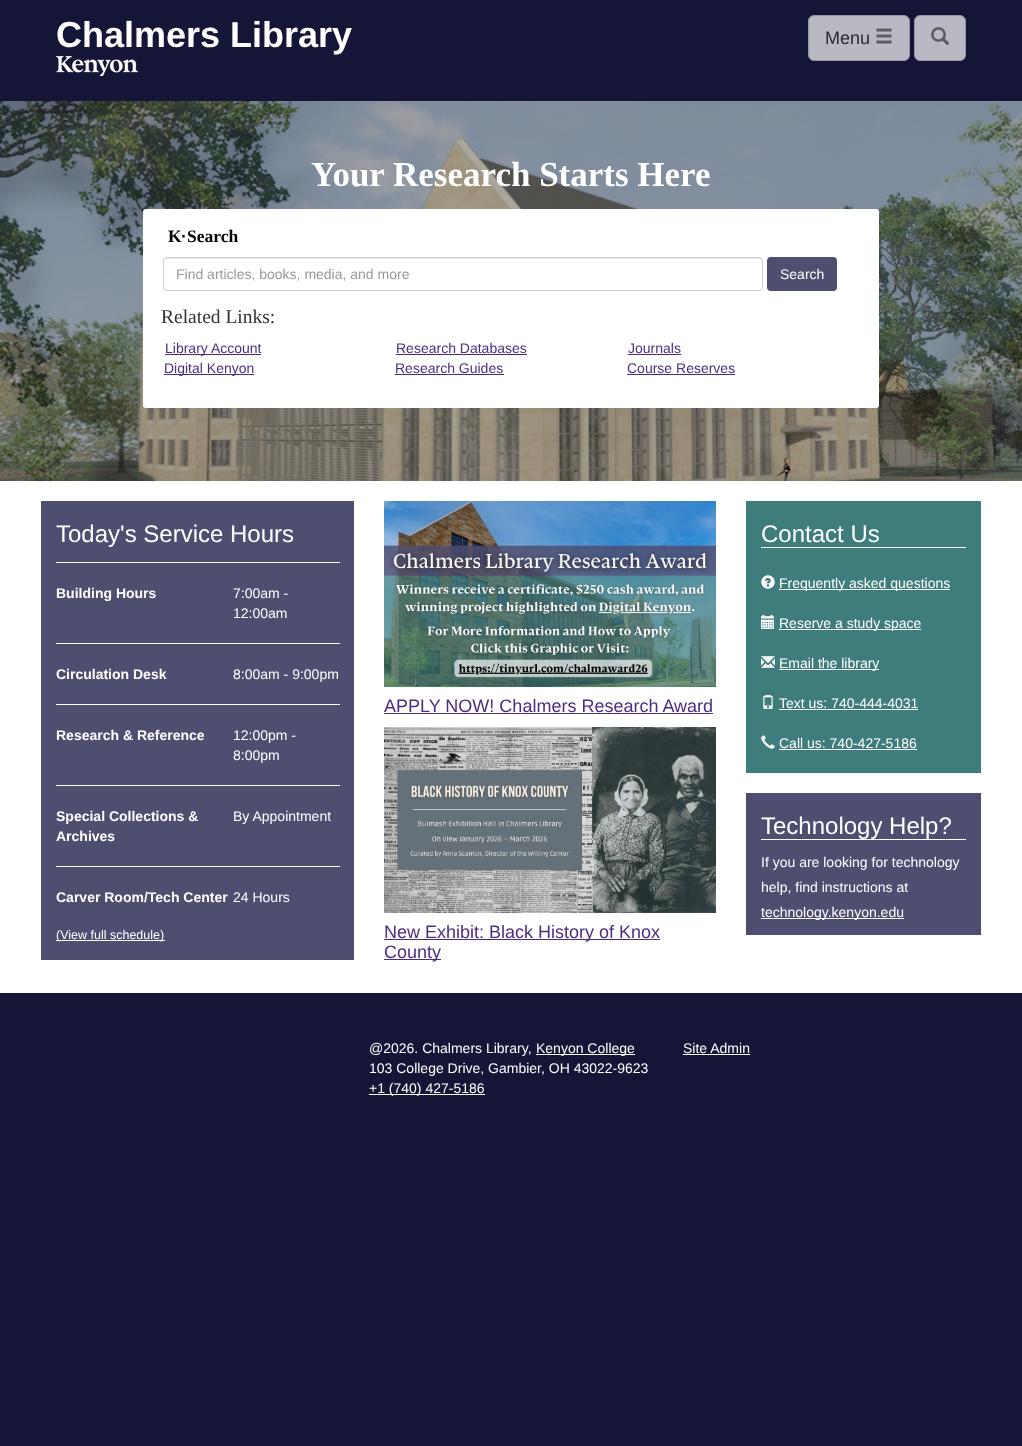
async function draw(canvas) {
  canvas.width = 1022;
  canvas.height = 1446;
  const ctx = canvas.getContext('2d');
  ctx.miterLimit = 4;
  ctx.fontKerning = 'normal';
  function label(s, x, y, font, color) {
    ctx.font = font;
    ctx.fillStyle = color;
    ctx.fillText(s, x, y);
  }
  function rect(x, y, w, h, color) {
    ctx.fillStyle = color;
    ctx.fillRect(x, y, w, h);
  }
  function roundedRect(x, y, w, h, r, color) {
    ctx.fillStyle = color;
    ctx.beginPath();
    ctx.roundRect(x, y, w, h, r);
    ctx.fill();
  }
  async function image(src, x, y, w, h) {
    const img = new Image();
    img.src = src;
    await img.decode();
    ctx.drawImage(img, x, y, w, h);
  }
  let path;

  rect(0, 0, 1022, 1446, '#151538');
  label('Chalmers Library', 56, 47, 'bold 36px Liberation Sans', '#fff');
  await image('assets/img1.png', 56, 56, 82, 20);
  ctx.fillStyle = '#b9b9c3';
  ctx.beginPath();
  ctx.roundRect(808.5, 15.5, 101, 45, 5.5);
  ctx.fill();
  ctx.strokeStyle = '#9595a0';
  ctx.stroke();
  label('Menu', 825, 44, '18px Liberation Sans', '#2a2a35');
  await image('assets/img2.png', 876, 28, 16, 16);
  ctx.fillStyle = '#b9b9c3';
  ctx.beginPath();
  ctx.roundRect(914.5, 15.5, 51, 45, 5.5);
  ctx.fill();
  ctx.stroke();
  await image('assets/img3.png', 931, 27, 19, 18);
  rect(0, 481, 1022, 512, '#fff');
  await image('assets/img4.png', 0, 101, 1022, 380);
  label('Your Research Starts Here', 311, 186, 'bold 35px Liberation Serif', '#fff');
  roundedRect(143, 209, 736, 199, 3, '#fff');
  label('K', 168, 242, 'bold 17.5px Liberation Serif', '#000');
  label('·', 181, 242, 'bold 17.5px Liberation Sans', '#000');
  label('Search', 187, 242, 'bold 17.5px Liberation Serif', '#000');
  ctx.fillStyle = '#ececec';
  path = new Path2D('M167 259H759C761 259 762 260 762 262V261C762 259 761 258 759 258H167C165 258 164 259 164 261V262C164 260 165 259 167 259Z');
  ctx.fill(path);
  ctx.beginPath();
  ctx.roundRect(163.5, 257.5, 599, 33, 3.5);
  ctx.strokeStyle = '#ccc';
  ctx.stroke();
  label('Find articles, books, media, and more', 176, 279, '14px Liberation Sans', '#999');
  roundedRect(767, 257, 70, 34, 4, '#4e4e71');
  label('Search', 780, 279, '14px Liberation Sans', '#fff');
  label('Related Links:', 161, 323, '19.5px Liberation Serif', '#333');
  rect(165, 354, 96, 1, '#4b2e84');
  label('Library Account', 165, 353, '14px Liberation Sans', '#4b2e84');
  label('Research Databases', 396, 353, '14px Liberation Sans', '#4b2e84');
  rect(396, 354, 131, 1, '#4b2e84');
  label('Journals', 628, 353, '14px Liberation Sans', '#4b2e84');
  rect(628, 354, 53, 1, '#4b2e84');
  rect(164, 374, 90, 1, '#4b2e84');
  label('Digital Kenyon', 164, 373, '14px Liberation Sans', '#4b2e84');
  label('Research Guides', 395, 373, '14px Liberation Sans', '#4b2e84');
  rect(395, 374, 109, 1, '#4b2e84');
  label('Course Reserves', 627, 373, '14px Liberation Sans', '#4b2e84');
  rect(627, 374, 108, 1, '#4b2e84');
  rect(41, 501, 313, 459, '#4e4e71');
  label('Today\'s Service Hours', 56, 542, '24px Liberation Sans', '#fff');
  label('Building Hours', 56, 598, 'bold 14px Liberation Sans', '#fff');
  rect(56, 562, 284, 1, '#fff');
  label('7:00am -', 233, 598, '14px Liberation Sans', '#fff');
  label('12:00am', 233, 618, '14px Liberation Sans', '#fff');
  label('Circulation Desk', 56, 679, 'bold 14px Liberation Sans', '#fff');
  rect(56, 643, 284, 1, '#fff');
  label('8:00am - 9:00pm', 233, 679, '14px Liberation Sans', '#fff');
  label('Research & Reference', 56, 740, 'bold 14px Liberation Sans', '#fff');
  rect(56, 704, 284, 1, '#fff');
  label('12:00pm -', 233, 740, '14px Liberation Sans', '#fff');
  label('8:00pm', 233, 760, '14px Liberation Sans', '#fff');
  label('Special Collections &', 56, 821, 'bold 14px Liberation Sans', '#fff');
  label('Archives', 56, 841, 'bold 14px Liberation Sans', '#fff');
  rect(56, 785, 284, 1, '#fff');
  label('By Appointment', 233, 821, '14px Liberation Sans', '#fff');
  label('Carver Room/Tech Center', 56, 902, 'bold 14px Liberation Sans', '#fff');
  rect(56, 866, 284, 1, '#fff');
  label('24 Hours', 233, 902, '14px Liberation Sans', '#fff');
  rect(56, 940, 109, 1, '#fff');
  label('(View full schedule)', 56, 939, '12.5px Liberation Sans', '#fff');
  rect(746, 501, 235, 272, '#3f7c7c');
  rect(761, 547, 205, 1, '#fff');
  label('Contact Us', 761, 542, '24px Liberation Sans', '#fff');
  await image('assets/img5.png', 761, 575, 14, 14);
  rect(779, 589, 171, 1, '#fff');
  label('Frequently asked questions', 779, 588, '14px Liberation Sans', '#fff');
  await image('assets/img6.png', 761, 615, 13, 14);
  rect(779, 629, 142, 1, '#fff');
  label('Reserve a study space', 779, 628, '14px Liberation Sans', '#fff');
  await image('assets/img7.png', 761, 656, 14, 12);
  rect(779, 669, 100, 1, '#fff');
  label('Email the library', 779, 668, '14px Liberation Sans', '#fff');
  await image('assets/img8.png', 763, 695, 10, 14);
  label('Text us: 740-444-4031', 779, 708, '14px Liberation Sans', '#fff');
  rect(779, 709, 139, 1, '#fff');
  await image('assets/img9.png', 761, 735, 14, 14);
  label('Call us: 740-427-5186', 779, 748, '14px Liberation Sans', '#fff');
  rect(779, 749, 138, 1, '#fff');
  await image('assets/img10.png', 384, 501, 332, 186);
  label('APPLY NOW! Chalmers Research Award', 384, 712, '18px Liberation Sans', '#4b2e84');
  rect(384, 713, 329, 1, '#4b2e84');
  await image('assets/img11.png', 384, 727, 332, 186);
  rect(384, 939, 276, 1, '#4b2e84');
  label('New Exhibit: Black History of Knox', 384, 938, '18px Liberation Sans', '#4b2e84');
  rect(384, 959, 57, 1, '#4b2e84');
  label('County', 384, 958, '18px Liberation Sans', '#4b2e84');
  rect(746, 793, 235, 142, '#4e4e71');
  rect(761, 839, 205, 1, '#fff');
  label('Technology Help?', 761, 834, '24px Liberation Sans', '#fff');
  label('If you are looking for technology', 761, 867, '14px Liberation Sans', '#fff');
  label('help, find instructions at', 761, 892, '14px Liberation Sans', '#fff');
  rect(761, 918, 143, 1, '#fff');
  label('technology.kenyon.edu', 761, 917, '14px Liberation Sans', '#fff');
  label('@2026. Chalmers Library,', 369, 1053, '14px Liberation Sans', '#fff');
  rect(536, 1054, 99, 1, '#fff');
  label('Kenyon College', 536, 1053, '14px Liberation Sans', '#fff');
  label('103 College Drive, Gambier, OH 43022-9623', 369, 1073, '14px Liberation Sans', '#fff');
  rect(369, 1094, 116, 1, '#fff');
  label('+1 (740) 427-5186', 369, 1093, '14px Liberation Sans', '#fff');
  label('Site Admin', 683, 1053, '14px Liberation Sans', '#fff');
  rect(683, 1054, 67, 1, '#fff');
}

draw(document.querySelector('canvas'));
